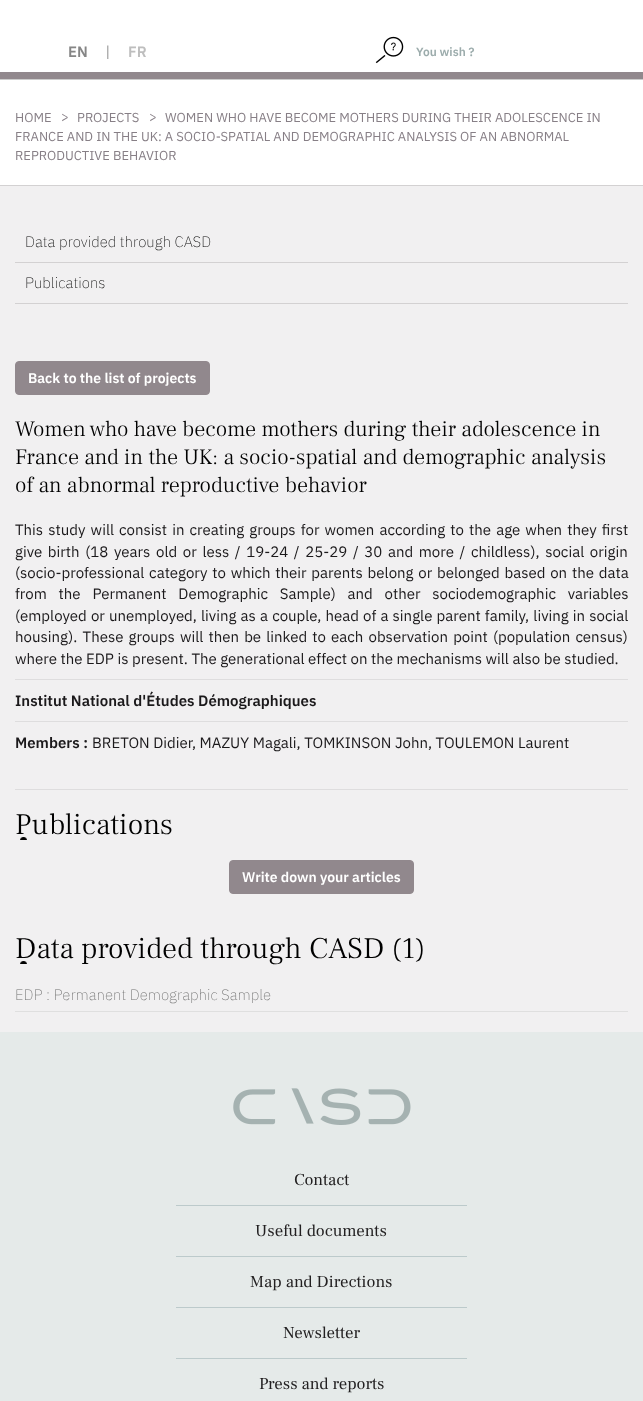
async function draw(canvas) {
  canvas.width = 643;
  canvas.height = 1401;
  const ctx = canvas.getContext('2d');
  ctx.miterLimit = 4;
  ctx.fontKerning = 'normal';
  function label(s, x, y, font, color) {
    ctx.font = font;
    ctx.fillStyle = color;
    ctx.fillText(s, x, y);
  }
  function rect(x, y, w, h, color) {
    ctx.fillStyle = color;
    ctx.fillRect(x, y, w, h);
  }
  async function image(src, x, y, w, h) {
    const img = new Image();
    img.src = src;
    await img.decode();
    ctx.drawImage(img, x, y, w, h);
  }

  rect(0, 0, 643, 1401, '#fff');
  rect(0, 79, 643, 1, '#ccc');
  rect(0, 72, 643, 7, '#91888d');
  label('EN', 68, 57, '600 15px IBM Plex Sans', '#868686');
  label('|', 106, 57, '200 15px IBM Plex Sans', '#000');
  label('FR', 128, 57, '600 15px IBM Plex Sans', '#bebebe');
  await image('assets/img1.png', 375, 36, 29, 28);
  label('You wish ?', 416, 56, '600 12px IBM Plex Sans', '#9cacac');
  rect(0, 185, 643, 1, '#d3d1d2');
  label('HOME', 15, 122, '13px IBM Plex Sans', '#877f86');
  label('>', 61, 121, '13px IBM Plex Sans', '#877f86');
  label('PROJECTS', 77, 122, '13px IBM Plex Sans', '#877f86');
  label('>', 149, 121, '13px IBM Plex Sans', '#877f86');
  label('WOMEN WHO HAVE BECOME MOTHERS DURING THEIR ADOLESCENCE IN', 165, 122, '13px IBM Plex Sans', '#877f86');
  label('FRANCE AND IN THE UK: A SOCIO-SPATIAL AND DEMOGRAPHIC ANALYSIS OF AN ABNORMAL', 15, 141, '13px IBM Plex Sans', '#877f86');
  label('REPRODUCTIVE BEHAVIOR', 15, 160, '13px IBM Plex Sans', '#877f86');
  rect(0, 186, 643, 846, '#f1f0f1');
  rect(15, 262, 613, 1, '#d3d1d2');
  label('Data provided through CASD', 25, 247, '200 15px IBM Plex Sans', '#000');
  rect(15, 303, 613, 1, '#d3d1d2');
  label('Publications', 25, 288, '200 15px IBM Plex Sans', '#000');
  ctx.fillStyle = '#91888d';
  ctx.beginPath();
  ctx.roundRect(15.5, 361.5, 194, 33, 3.5);
  ctx.fill();
  ctx.strokeStyle = '#91888d';
  ctx.stroke();
  label('Back to the list of projects', 28, 383, '600 14px IBM Plex Sans', '#fff');
  label('Women who have become mothers during their adolescence in', 15, 436, '300 22.1px Frank Ruhl Libre', '#000');
  label('France and in the UK: a socio-spatial and demographic analysis', 15, 464, '300 22.1px Frank Ruhl Libre', '#000');
  label('of an abnormal reproductive behavior', 15, 492, '300 22.1px Frank Ruhl Libre', '#000');
  ctx.wordSpacing = '1.6px';
  label('This study will consist in creating groups for women according to the age when they first', 15, 535, '15px IBM Plex Sans', '#1b191b');
  ctx.wordSpacing = '2.1px';
  label('give birth (18 years old or less / 19-24 / 25-29 / 30 and more / childless), social origin', 15, 557, '15px IBM Plex Sans', '#1b191b');
  ctx.wordSpacing = '1.25px';
  label('(socio-professional category to which their parents belong or belonged based on the data', 15, 578, '15px IBM Plex Sans', '#1b191b');
  ctx.wordSpacing = '8.25px';
  label('from the Permanent Demographic Sample) and other sociodemographic variables', 15, 599, '15px IBM Plex Sans', '#1b191b');
  ctx.wordSpacing = '0.6px';
  label('(employed or unemployed, living as a couple, head of a single parent family, living in social', 15, 621, '15px IBM Plex Sans', '#1b191b');
  ctx.wordSpacing = '1.6px';
  label('housing). These groups will then be linked to each observation point (population census)', 15, 642, '15px IBM Plex Sans', '#1b191b');
  ctx.wordSpacing = '0px';
  label('where the EDP is present. The generational effect on the mechanisms will also be studied.', 15, 664, '15px IBM Plex Sans', '#1b191b');
  rect(15, 679, 613, 1, '#deddde');
  label('Institut National d\'Études Démographiques', 15, 706, '600 15px IBM Plex Sans', '#1b191b');
  rect(15, 721, 613, 1, '#deddde');
  label('Members :', 15, 748, '600 15px IBM Plex Sans', '#1b191b');
  label('BRETON Didier, MAZUY Magali, TOMKINSON John, TOULEMON Laurent', 92, 748, '15px IBM Plex Sans', '#1b191b');
  rect(15, 789, 613, 1, '#deddde');
  await image('assets/img2.png', 20, 837, 7, 3);
  label('Publications', 15, 834, '300 30px Frank Ruhl Libre', '#000');
  ctx.fillStyle = '#91888d';
  ctx.beginPath();
  ctx.roundRect(229.5, 860.5, 184, 33, 3.5);
  ctx.fill();
  ctx.stroke();
  label('Write down your articles', 242, 882, '600 14px IBM Plex Sans', '#fff');
  await image('assets/img2.png', 20, 961, 7, 3);
  label('Data provided through CASD (1)', 15, 958, '300 30px Frank Ruhl Libre', '#000');
  rect(15, 1011, 613, 1, '#dfdfdf');
  label('EDP : Permanent Demographic Sample', 15, 1000, '200 15px IBM Plex Sans', '#707070');
  rect(0, 1032, 643, 369, '#e5eae9');
  await image('assets/img3.png', 233, 1088, 178, 37);
  rect(176, 1205, 291, 1, '#bccacb');
  label('Contact', 294, 1185, '16.75px Frank Ruhl Libre', '#222021');
  rect(176, 1256, 291, 1, '#bccacb');
  label('Useful documents', 255, 1236, '16.75px Frank Ruhl Libre', '#222021');
  rect(176, 1307, 291, 1, '#bccacb');
  label('Map and Directions', 250, 1287, '16.75px Frank Ruhl Libre', '#222021');
  rect(176, 1358, 291, 1, '#bccacb');
  label('Newsletter', 283, 1338, '16.75px Frank Ruhl Libre', '#222021');
  label('Press and reports', 259, 1389, '16.75px Frank Ruhl Libre', '#222021');
}

draw(document.querySelector('canvas'));
